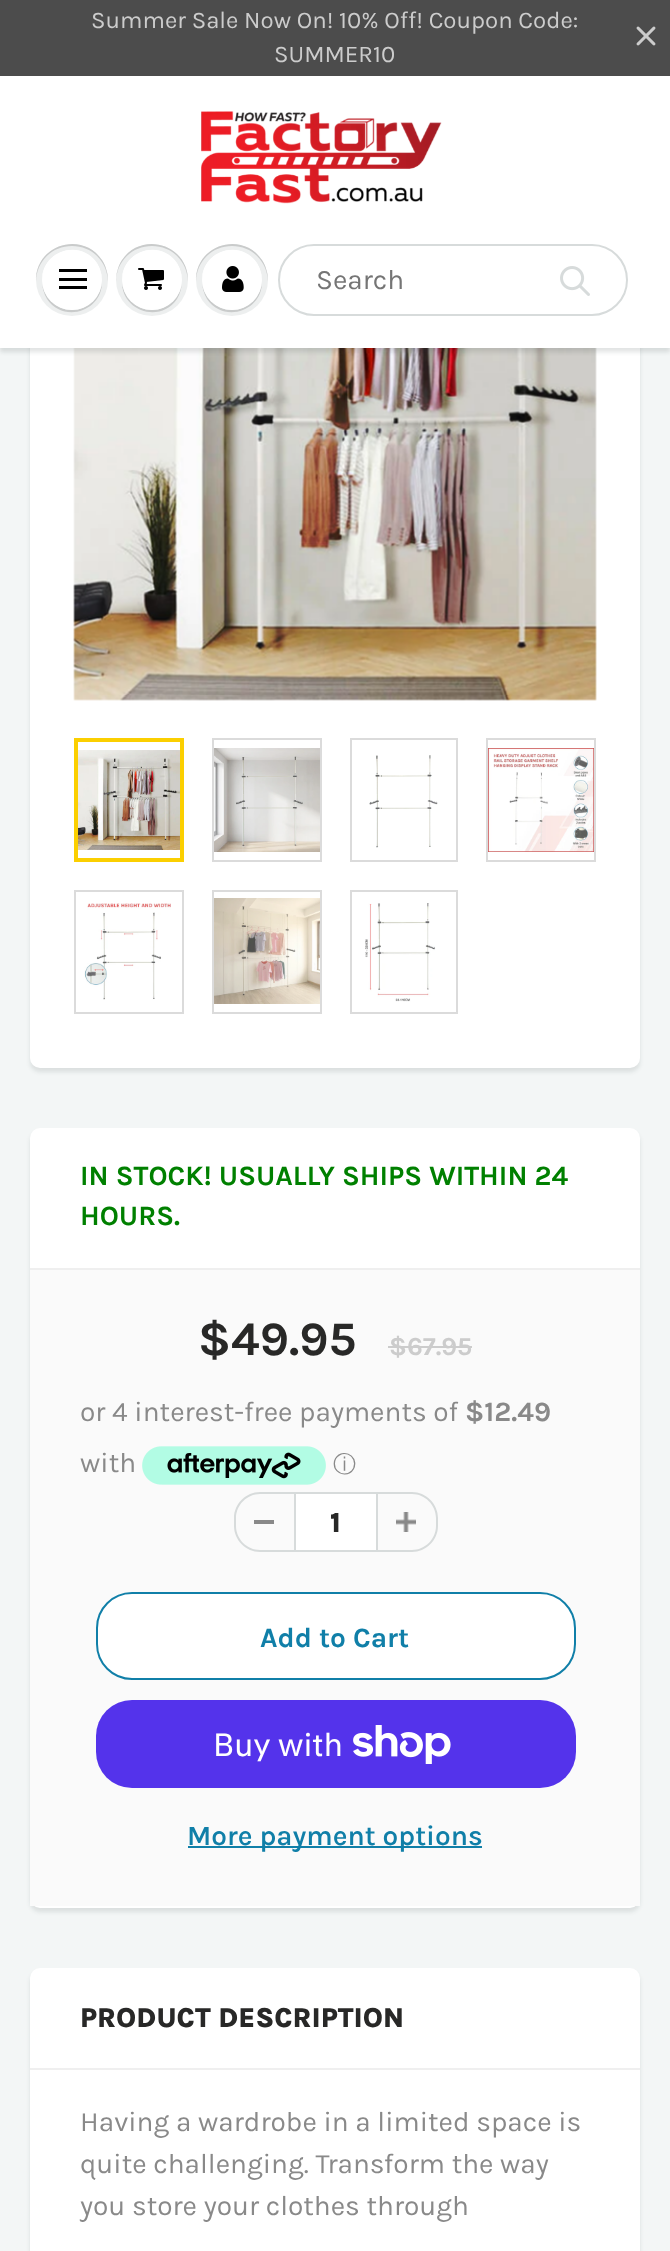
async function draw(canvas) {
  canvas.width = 670;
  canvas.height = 2251;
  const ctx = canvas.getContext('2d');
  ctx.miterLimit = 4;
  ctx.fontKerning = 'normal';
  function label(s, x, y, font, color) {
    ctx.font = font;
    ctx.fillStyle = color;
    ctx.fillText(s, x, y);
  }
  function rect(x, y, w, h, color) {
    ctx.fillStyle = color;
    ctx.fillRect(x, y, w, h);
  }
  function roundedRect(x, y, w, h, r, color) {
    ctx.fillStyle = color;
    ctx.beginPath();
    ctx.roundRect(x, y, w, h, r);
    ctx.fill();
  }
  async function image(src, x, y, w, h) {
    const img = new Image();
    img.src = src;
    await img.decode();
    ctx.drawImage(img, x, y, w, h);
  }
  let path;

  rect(0, 0, 670, 2251, '#f3f6f6');
  ctx.fillStyle = '#0b191c1a';
  ctx.filter = 'blur(2px)';
  ctx.beginPath();
  ctx.roundRect(30, 128, 610, 944, 10);
  ctx.fill();
  ctx.filter = 'none';
  roundedRect(30, 124, 610, 944, 10, '#fff');
  await image('assets/img6.png', 73, 348, 524, 353);
  ctx.fillStyle = '#0b191c1f';
  ctx.filter = 'blur(2px)';
  ctx.beginPath();
  ctx.rect(0, 4, 670, 348);
  ctx.fill();
  ctx.filter = 'none';
  rect(0, 0, 670, 76, '#4c4c4c');
  label('Summer Sale Now On! 10% Off! Coupon Code:', 91, 28, '24px Karla', '#ccc');
  label('SUMMER10', 274, 62, '24px Karla', '#ccc');
  await image('assets/img1.png', 636, 26, 20, 20);
  rect(0, 76, 670, 272, '#fff');
  await image('assets/img2.png', 201, 111, 241, 93);
  ctx.fillStyle = '#edefef';
  ctx.beginPath();
  ctx.arc(72, 280, 36, 0, 2 * Math.PI);
  ctx.fill();
  ctx.fillStyle = '#c9cbcb';
  path = new Path2D('M42 281C42 287 44 294 47 299C64 324 103 311 102 281C101 297 88 310 72 310C56 310 43 297 42 281Z');
  ctx.fill(path);
  path = new Path2D('M72 246C92 246 107 261 108 281C108 274 106 266 102 260C82 230 35 245 36 281C37 261 52 246 72 246Z');
  ctx.fill(path);
  ctx.fillStyle = '#fff';
  ctx.beginPath();
  ctx.arc(72, 280, 30, 0, 2 * Math.PI);
  ctx.fill();
  path = new Path2D('M72 252C89 252 101 264 102 281C102 275 100 268 97 263C80 238 41 251 42 281C43 264 55 252 72 252Z');
  ctx.fill(path);
  rect(59, 269, 28, 3, '#000');
  rect(59, 278, 28, 3, '#000');
  rect(59, 286, 28, 3, '#000');
  ctx.fillStyle = '#edefef';
  ctx.beginPath();
  ctx.arc(152, 280, 36, 0, 2 * Math.PI);
  ctx.fill();
  ctx.fillStyle = '#c9cbcb';
  path = new Path2D('M122 281C121 311 160 324 177 299C180 294 182 287 182 281C181 297 168 310 152 310C136 310 123 297 122 281Z');
  ctx.fill(path);
  path = new Path2D('M152 246C172 246 187 261 188 281C189 245 142 230 122 260C118 266 116 274 116 281C117 261 132 246 152 246Z');
  ctx.fill(path);
  ctx.fillStyle = '#fff';
  ctx.beginPath();
  ctx.arc(152, 280, 30, 0, 2 * Math.PI);
  ctx.fill();
  path = new Path2D('M152 252C169 252 181 264 182 281C182 275 180 268 177 263C160 238 121 251 122 281C123 264 135 252 152 252Z');
  ctx.fill(path);
  await image('assets/img3.png', 138, 268, 26, 22);
  ctx.fillStyle = '#edefef';
  ctx.beginPath();
  ctx.arc(232, 280, 36, 0, 2 * Math.PI);
  ctx.fill();
  ctx.fillStyle = '#c9cbcb';
  path = new Path2D('M202 281C202 287 204 294 207 299C224 324 263 311 262 281C261 297 248 310 232 310C216 310 203 297 202 281Z');
  ctx.fill(path);
  path = new Path2D('M232 246C252 246 267 261 268 281C268 274 266 266 262 260C242 230 195 245 196 281C197 261 212 246 232 246Z');
  ctx.fill(path);
  ctx.fillStyle = '#fff';
  ctx.beginPath();
  ctx.arc(232, 280, 30, 0, 2 * Math.PI);
  ctx.fill();
  path = new Path2D('M232 252C249 252 261 264 262 281C262 275 260 268 257 263C240 238 201 251 202 281C203 264 215 252 232 252Z');
  ctx.fill(path);
  await image('assets/img4.png', 222, 266, 22, 26);
  ctx.beginPath();
  ctx.roundRect(279, 245, 348, 70, 35);
  ctx.strokeStyle = '#d7dbdb';
  ctx.lineWidth = 2;
  ctx.stroke();
  label('Search', 316, 289, '28px Karla', '#757575');
  await image('assets/img5.png', 560, 266, 30, 30);
  ctx.strokeStyle = '#fbcf00';
  ctx.lineWidth = 4;
  ctx.strokeRect(76, 740, 106, 120);
  await image('assets/img7.png', 78, 750, 102, 100);
  ctx.strokeStyle = '#dbdbdb';
  ctx.lineWidth = 2;
  ctx.strokeRect(213, 739, 108, 122);
  await image('assets/img8.png', 214, 748, 106, 104);
  ctx.strokeRect(351, 739, 106, 122);
  await image('assets/img9.png', 369, 755, 69, 93);
  ctx.strokeRect(487, 739, 108, 122);
  await image('assets/img10.png', 488, 748, 106, 104);
  ctx.strokeRect(75, 891, 108, 122);
  await image('assets/img11.png', 84, 903, 87, 97);
  ctx.strokeRect(213, 891, 108, 122);
  await image('assets/img12.png', 214, 898, 106, 106);
  ctx.strokeRect(351, 891, 106, 122);
  await image('assets/img13.png', 365, 903, 71, 99);
  ctx.fillStyle = '#0b191c1a';
  ctx.filter = 'blur(2px)';
  ctx.beginPath();
  ctx.roundRect(30, 1132, 610, 780, 10);
  ctx.fill();
  ctx.filter = 'none';
  roundedRect(30, 1128, 610, 780, 10, '#fff');
  rect(30, 1268, 610, 2, '#efefef');
  label('IN STOCK! USUALLY SHIPS WITHIN 24', 80, 1185, 'bold 28px Karla', '#008000');
  label('HOURS.', 80, 1225, 'bold 28px Karla', '#008000');
  rect(30, 1270, 610, 636, '#fafafa');
  label('$49.95', 198, 1355, 'bold 48px Karla', '#282827');
  label('$67.95', 389, 1355, 'bold 26px Karla', '#ccc');
  rect(388, 1346, 84, 2, '#ccc');
  label('or 4 interest-free payments of', 80, 1421, '28px Karla', '#898989');
  label('$12.49', 465, 1421, 'bold 28px Karla', '#898989');
  label('with', 80, 1472, '28px Karla', '#898989');
  await image('assets/img14.png', 142, 1446, 184, 39);
  label('ⓘ', 333, 1472, '500 23px WenQuanYi Zen Hei', '#898989');
  rect(254, 1520, 20, 4, '#898989');
  ctx.fillStyle = '#d7dbdb';
  path = new Path2D('M260 1492H294V1552H260C246 1552 234 1540 234 1526V1518C234 1504 246 1492 260 1492ZM260 1494H294V1550H260C247 1550 236 1539 236 1526V1518C236 1505 247 1494 260 1494Z');
  ctx.fill(path, 'evenodd');
  ctx.fillStyle = '#fff';
  ctx.beginPath();
  ctx.rect(295, 1493, 82, 58);
  ctx.fill();
  ctx.strokeStyle = '#d7dbdb';
  ctx.stroke();
  label('1', 330, 1532, '800 28px Karla', '#282827');
  await image('assets/img15.png', 396, 1512, 20, 20);
  ctx.fillStyle = '#d7dbdb';
  path = new Path2D('M378 1492H412C426 1492 438 1504 438 1518V1526C438 1540 426 1552 412 1552H378ZM378 1494H412C425 1494 436 1505 436 1518V1526C436 1539 425 1550 412 1550H378Z');
  ctx.fill(path, 'evenodd');
  ctx.fillStyle = '#fff';
  ctx.beginPath();
  ctx.roundRect(97, 1593, 478, 86, 35);
  ctx.fill();
  ctx.strokeStyle = '#107fa8';
  ctx.stroke();
  label('Add to Cart', 260, 1647, 'bold 28px Karla', '#107fa8');
  roundedRect(96, 1700, 480, 88, 36, '#5433eb');
  label('Buy with', 213, 1756, '32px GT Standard', '#fff');
  await image('assets/img16.png', 353, 1725, 98, 39);
  rect(188, 1846, 294, 2, '#107fa8');
  label('More payment options', 187, 1845, '600 28px Karla', '#107fa8');
  ctx.fillStyle = '#0b191c1a';
  ctx.filter = 'blur(2px)';
  ctx.beginPath();
  ctx.roundRect(30, 1972, 610, 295, 10);
  ctx.fill();
  ctx.filter = 'none';
  roundedRect(30, 1968, 610, 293, 10, '#fff');
  rect(30, 2068, 610, 2, '#efefef');
  label('PRODUCT DESCRIPTION', 80, 2027, '800 28px Karla', '#282827');
  label('Having a wardrobe in a limited space is', 80, 2131, '28px Karla', '#898989');
  label('quite challenging. Transform the way', 80, 2173, '28px Karla', '#898989');
  label('you store your clothes through', 80, 2215, '28px Karla', '#898989');
}

draw(document.querySelector('canvas'));
